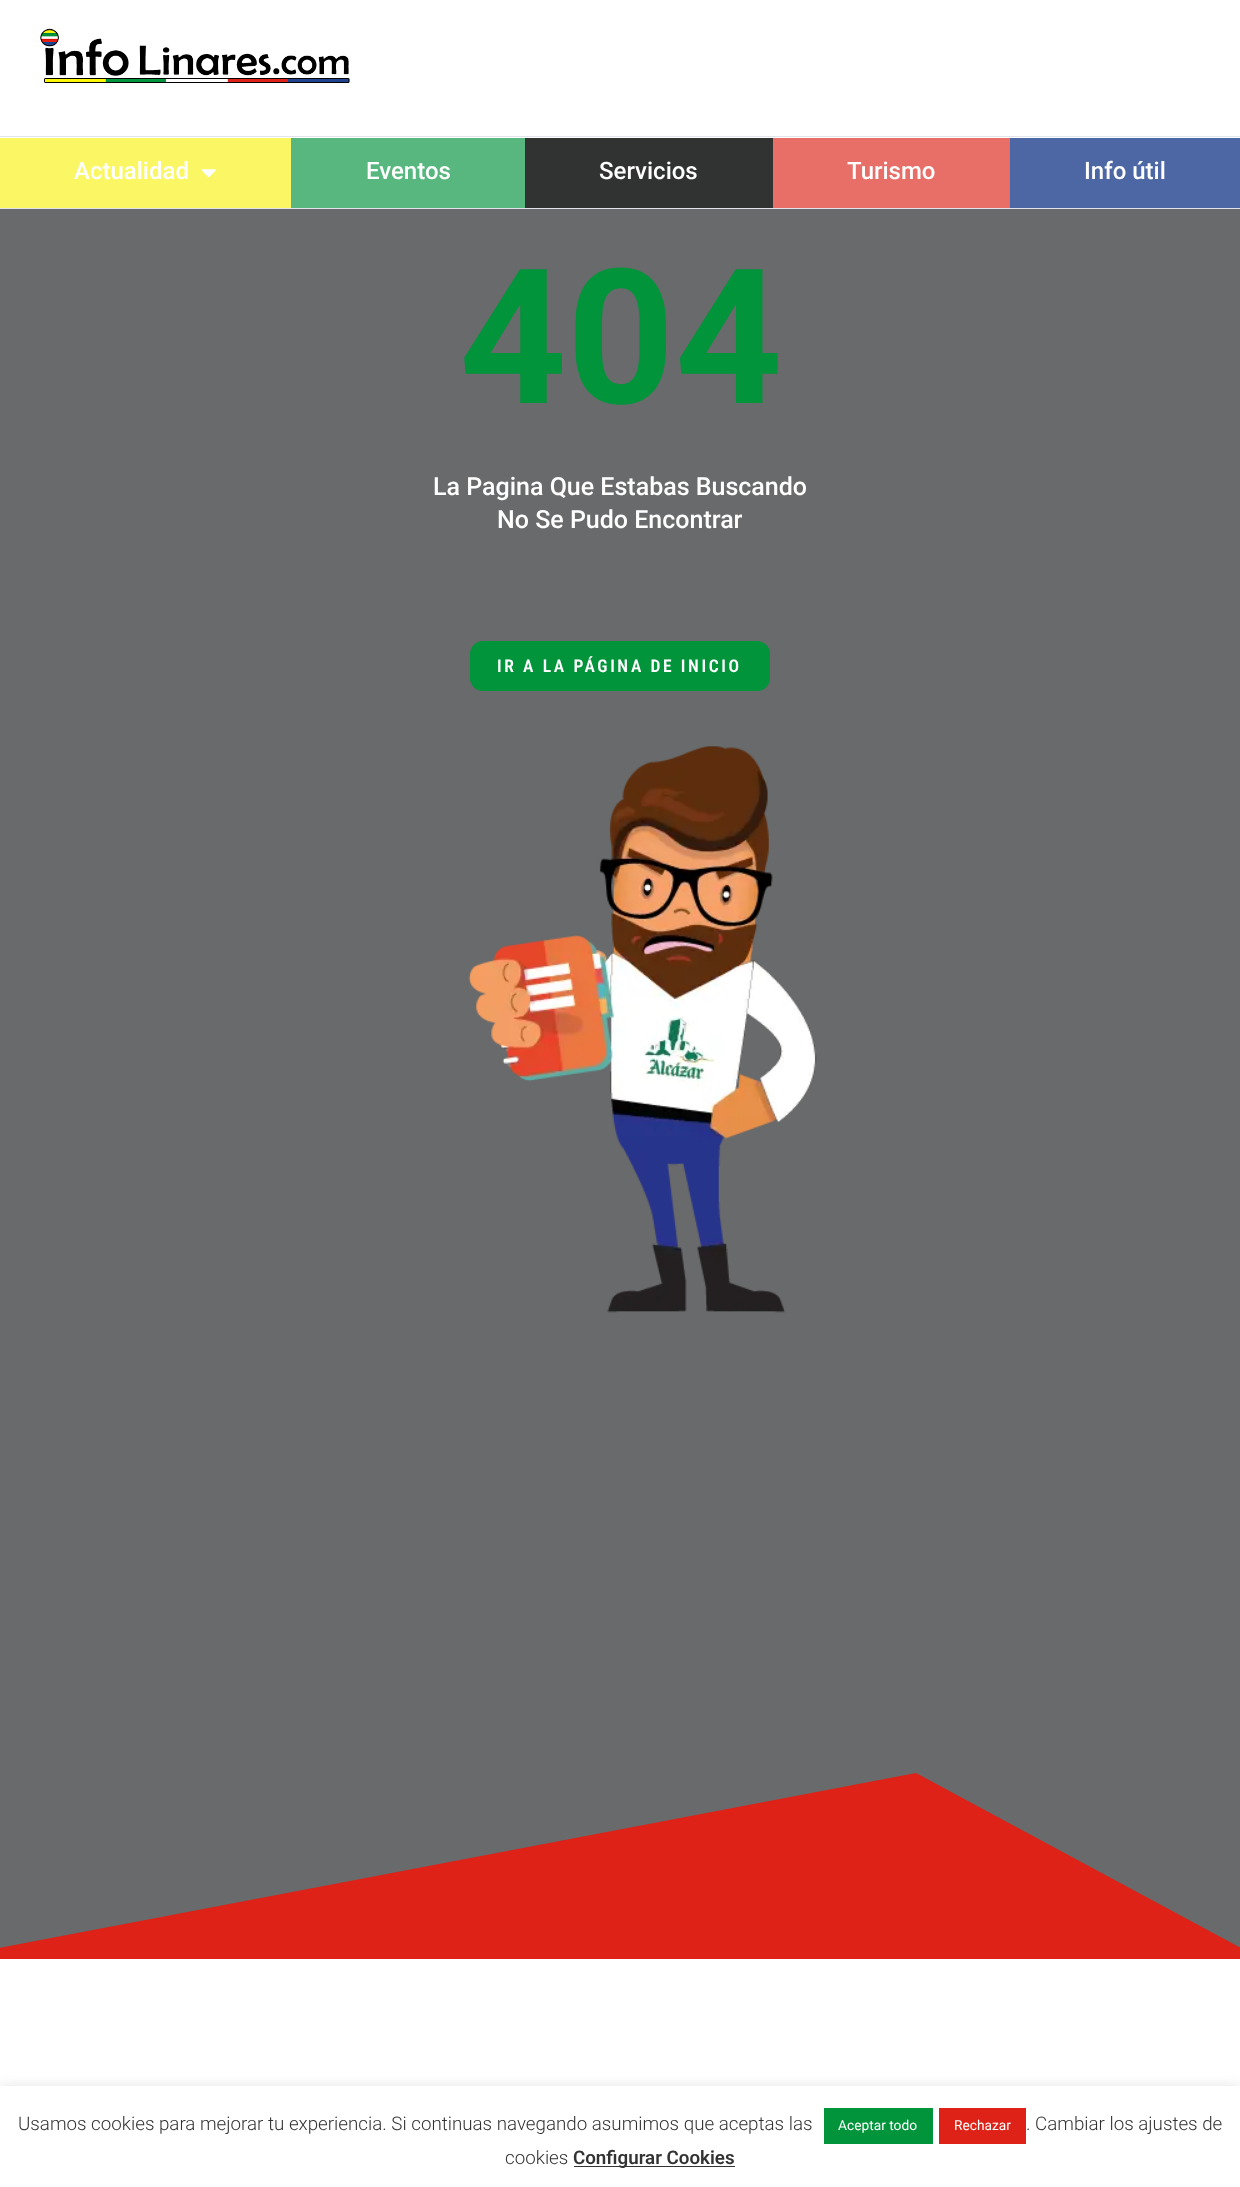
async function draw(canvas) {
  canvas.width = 1240;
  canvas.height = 2187;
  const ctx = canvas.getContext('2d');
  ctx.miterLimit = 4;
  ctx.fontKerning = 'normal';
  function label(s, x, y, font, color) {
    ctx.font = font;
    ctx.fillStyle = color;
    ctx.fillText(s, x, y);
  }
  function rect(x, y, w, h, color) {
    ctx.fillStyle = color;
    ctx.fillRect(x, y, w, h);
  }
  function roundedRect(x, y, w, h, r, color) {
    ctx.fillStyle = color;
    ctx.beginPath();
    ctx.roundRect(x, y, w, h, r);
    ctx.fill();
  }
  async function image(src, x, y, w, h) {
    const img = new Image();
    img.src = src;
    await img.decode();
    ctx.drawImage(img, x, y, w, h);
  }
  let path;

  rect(0, 0, 1240, 2187, '#fff');
  await image('assets/img1.png', 40, 28, 310, 55);
  rect(0, 136, 1240, 1, '#e1e5eb');
  rect(0, 208, 1240, 1, '#e1e5eb');
  rect(0, 138, 291, 70, '#fbf764');
  label('Actualidad', 74, 179, '500 24px Roboto', '#fff');
  await image('assets/img2.png', 201, 169, 15, 9);
  rect(291, 138, 234, 70, '#57b77e');
  label('Eventos', 366, 179, '500 24px Roboto', '#fff');
  rect(525, 138, 248, 70, '#313232');
  label('Servicios', 599, 179, '500 24px Roboto', '#fff');
  rect(773, 138, 237, 70, '#e76f68');
  label('Turismo', 847, 179, '500 24px Roboto', '#fff');
  rect(1010, 138, 230, 70, '#4c67a3');
  label('Info útil', 1084, 179, '500 24px Roboto', '#fff');
  rect(0, 209, 1240, 1739, '#696a6b');
  label('404', 459, 403, 'bold 188px Roboto', '#01943b');
  label('La Pagina Que Estabas Buscando', 433, 495, '500 25px Roboto', '#fff');
  label('No Se Pudo Encontrar', 497, 528, '500 25px Roboto', '#fff');
  roundedRect(470, 641, 300, 50, 13, '#01943b');
  ctx.letterSpacing = '2.6px';
  label('IR A LA PÁGINA DE INICIO', 497, 672, '600 17.5px Roboto Condensed', '#fff');
  await image('assets/img3.png', 468, 746, 349, 567);
  ctx.fillStyle = '#de2217';
  path = new Path2D('M916 1773L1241 1948V1959H-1V1948Z');
  ctx.fill(path);
  ctx.fillStyle = '#acabab4d';
  ctx.filter = 'blur(6px)';
  ctx.beginPath();
  ctx.rect(0, 2085, 1240, 101);
  ctx.fill();
  ctx.filter = 'none';
  rect(0, 2086, 1240, 101, '#fff');
  ctx.letterSpacing = '0px';
  label('Usamos cookies para mejorar tu experiencia. Si continuas navegando asumimos que aceptas las', 18, 2130, '300 18.75px Roboto', '#333');
  rect(824, 2108, 109, 36, '#01943b');
  label('Aceptar todo', 838, 2130, '13.75px Roboto', '#fff');
  rect(939, 2108, 87, 36, '#de2217');
  label('Rechazar', 954, 2130, '13.75px Roboto', '#fff');
  label('. Cambiar los ajustes de', 1026, 2130, '300 18.75px Roboto', '#333');
  label('cookies', 505, 2164, '300 18.75px Roboto', '#333');
  rect(574, 2166, 161, 1, '#333');
  label('Configurar Cookies', 573, 2164, '600 18.75px Roboto', '#333');
}

draw(document.querySelector('canvas'));
